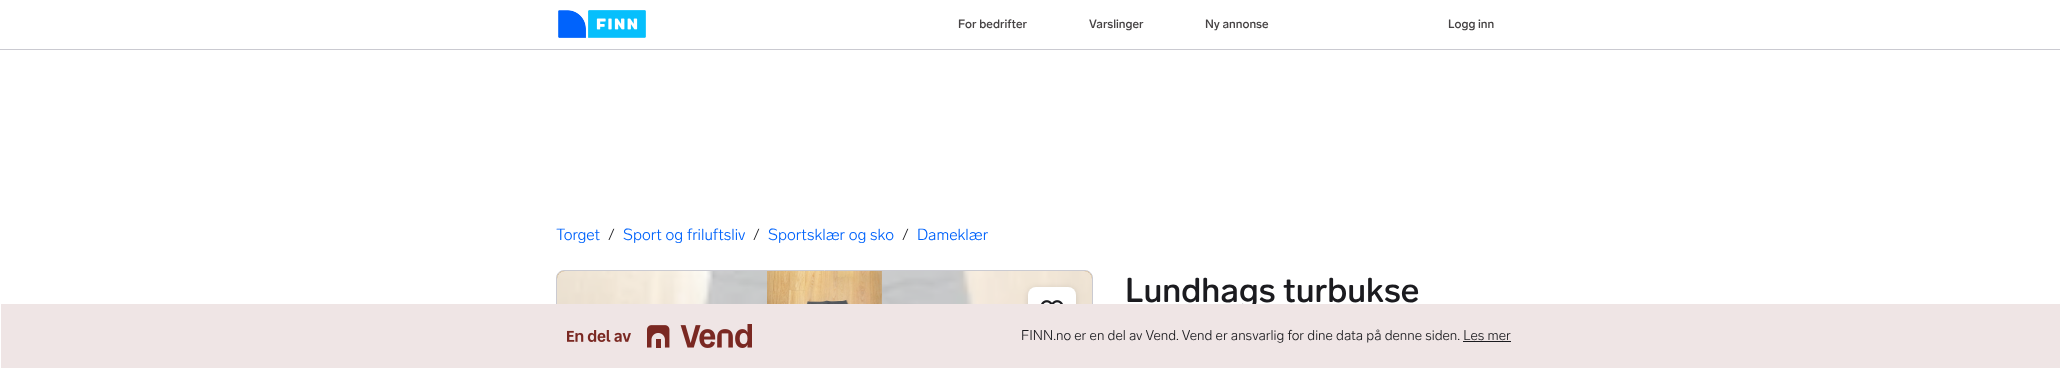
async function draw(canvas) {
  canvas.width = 2060;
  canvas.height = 368;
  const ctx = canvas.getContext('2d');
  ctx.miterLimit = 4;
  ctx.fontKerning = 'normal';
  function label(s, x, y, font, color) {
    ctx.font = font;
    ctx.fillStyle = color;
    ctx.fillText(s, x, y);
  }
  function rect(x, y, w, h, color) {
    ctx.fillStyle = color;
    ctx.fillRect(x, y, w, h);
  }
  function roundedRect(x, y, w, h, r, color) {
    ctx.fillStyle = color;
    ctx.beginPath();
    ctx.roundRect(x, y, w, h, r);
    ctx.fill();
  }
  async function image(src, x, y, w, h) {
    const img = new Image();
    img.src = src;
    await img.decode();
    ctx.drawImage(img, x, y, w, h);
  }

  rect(0, 0, 2060, 368, '#fff');
  rect(0, 49, 2060, 1, '#cacad1');
  await image('assets/img1.png', 558, 10, 88, 28);
  label('For bedrifter', 958, 28, '500 12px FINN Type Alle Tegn', '#474445');
  label('Varslinger', 1089, 28, '500 12px FINN Type Alle Tegn', '#474445');
  label('Ny annonse', 1205, 28, '500 12px FINN Type Alle Tegn', '#474445');
  label('Logg inn', 1448, 28, '500 12px FINN Type Alle Tegn', '#474445');
  label('Torget', 556, 240, '300 16px FINN Type Alle Tegn', '#0063fb');
  label('/', 608, 240, '300 16px FINN Type Alle Tegn', '#1b1b1f');
  label('Sport og friluftsliv', 623, 240, '300 16px FINN Type Alle Tegn', '#0063fb');
  label('/', 753, 240, '300 16px FINN Type Alle Tegn', '#1b1b1f');
  label('Sportsklær og sko', 768, 240, '300 16px FINN Type Alle Tegn', '#0063fb');
  label('/', 902, 240, '300 16px FINN Type Alle Tegn', '#1b1b1f');
  label('Dameklær', 917, 240, '300 16px FINN Type Alle Tegn', '#0063fb');
  ctx.beginPath();
  ctx.roundRect(556.5, 270.5, 536, 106, 7.5);
  ctx.strokeStyle = '#cacad1';
  ctx.stroke();
  await image('assets/img2.png', 557, 271, 535, 33);
  ctx.save();
  ctx.beginPath();
  ctx.roundRect(557, 271, 535, 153, 7);
  ctx.clip();
  roundedRect(557, 271, 535, 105, 8, '#ffffffb3');
  ctx.restore();
  await image('assets/img3.png', 767, 271, 115, 33);
  ctx.fillStyle = '#0000001f';
  ctx.filter = 'blur(3px)';
  ctx.beginPath();
  ctx.roundRect(1028, 288, 48, 48, 8);
  ctx.fill();
  ctx.filter = 'none';
  roundedRect(1028, 287, 48, 48, 8, '#fff');
  await image('assets/img4.png', 1041, 300, 22, 4);
  label('Lundhags turbukse', 1125, 302, '500 34px FINN Type Alle Tegn', '#1b1b1f');
  rect(1, 304, 2059, 64, '#efe5e5');
  await image('assets/img5.png', 567, 324, 185, 24);
  label('FINN.no er en del av Vend. Vend er ansvarlig for dine data på denne siden. Les mer', 1021, 340, '300 14px FINN Type Alle Tegn', '#1b1b1f');
  rect(1463, 341, 48, 1, '#1b1b1f');
}

draw(document.querySelector('canvas'));
